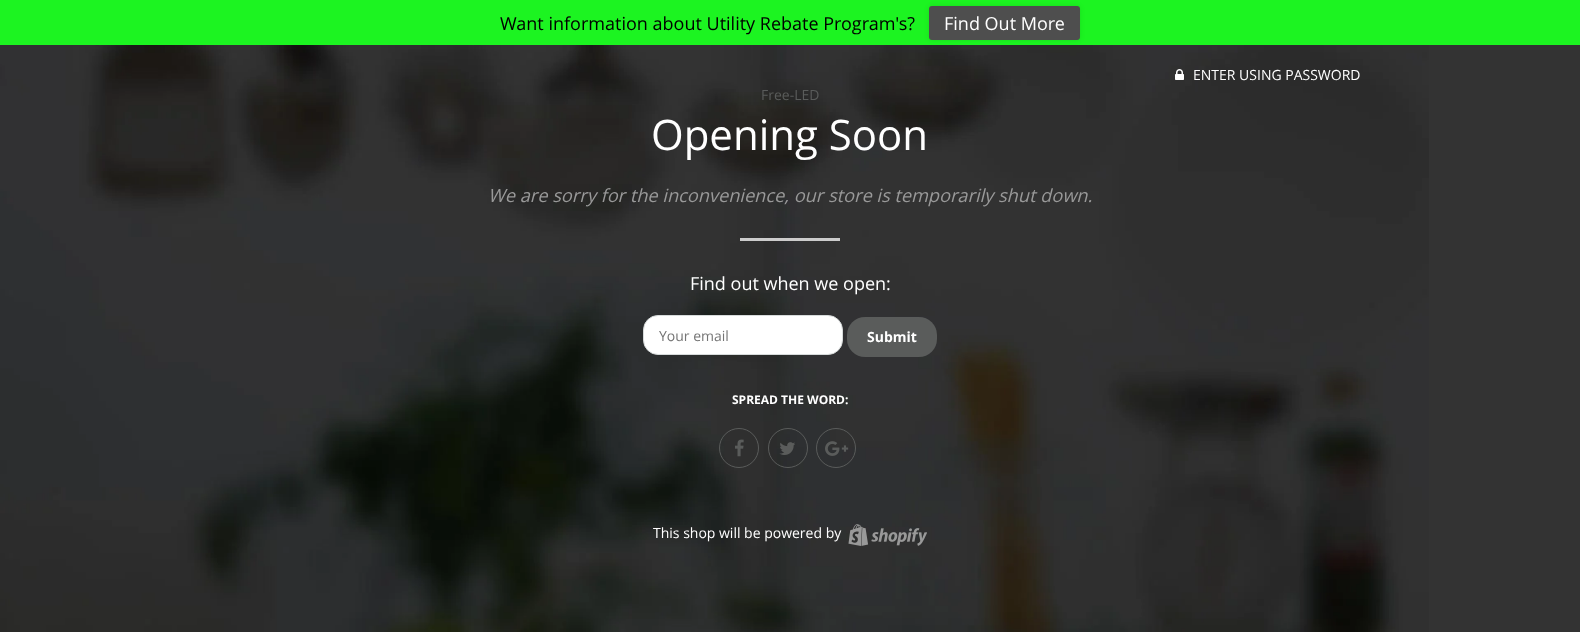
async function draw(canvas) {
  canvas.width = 1580;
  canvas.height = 632;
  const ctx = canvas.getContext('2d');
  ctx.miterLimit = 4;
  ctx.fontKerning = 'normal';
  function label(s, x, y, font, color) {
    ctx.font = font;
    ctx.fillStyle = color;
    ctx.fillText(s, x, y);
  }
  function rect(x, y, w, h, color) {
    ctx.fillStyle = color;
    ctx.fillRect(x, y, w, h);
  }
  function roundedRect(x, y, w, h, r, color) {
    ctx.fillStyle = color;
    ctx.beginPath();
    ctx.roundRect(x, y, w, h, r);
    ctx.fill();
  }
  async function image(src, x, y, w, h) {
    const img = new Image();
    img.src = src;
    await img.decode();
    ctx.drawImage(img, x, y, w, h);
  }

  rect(0, 0, 1580, 632, '#333');
  await image('assets/img1.png', 0, 45, 1429, 587);
  rect(0, 0, 1580, 45, '#1cf421');
  label('Want information about Utility Rebate Program\'s?', 500, 30, '18px "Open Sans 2"', '#000');
  ctx.fillStyle = '#0000001a';
  ctx.filter = 'blur(2.5px)';
  ctx.beginPath();
  ctx.roundRect(929, 6, 151, 34, 3);
  ctx.fill();
  ctx.filter = 'none';
  roundedRect(929, 6, 151, 34, 3, '#4e4e4e');
  label('Find Out More', 944, 30, '18px "Open Sans 2"', '#fff');
  await image('assets/img2.png', 1175, 69, 9, 11);
  label('ENTER USING PASSWORD', 1193, 80, '14px Open Sans', '#fff');
  label('Free-LED', 761, 100, '14px Open Sans', '#5a5c5b');
  label('Opening Soon', 651, 150, '42px Open Sans', '#fff');
  label('We are sorry for the inconvenience, our store is temporarily shut down.', 488, 202, 'italic 18.2px Open Sans', '#999');
  rect(740, 238, 100, 3, '#ccc');
  label('Find out when we open:', 690, 290, '18px Open Sans', '#fff');
  ctx.beginPath();
  ctx.roundRect(643.5, 315.5, 199, 39, 14.5);
  ctx.fill();
  ctx.strokeStyle = '#d7dbdb';
  ctx.stroke();
  label('Your email', 659, 341, '14px Open Sans', '#757575');
  roundedRect(847, 317, 90, 40, 18, '#5a5c5b');
  label('Submit', 867, 342, 'bold 14px Open Sans', '#fff');
  label('SPREAD THE WORD:', 732, 404, 'bold 12px Open Sans', '#fff');
  ctx.beginPath();
  ctx.arc(739, 448, 19.5, 0, 2 * Math.PI);
  ctx.strokeStyle = '#5a5c5b';
  ctx.stroke();
  await image('assets/img3.png', 735, 439, 9, 18);
  ctx.beginPath();
  ctx.arc(788, 448, 19.5, 0, 2 * Math.PI);
  ctx.stroke();
  await image('assets/img4.png', 779, 442, 16, 13);
  ctx.beginPath();
  ctx.arc(836, 448, 19.5, 0, 2 * Math.PI);
  ctx.stroke();
  await image('assets/img5.png', 825, 441, 24, 15);
  label('This shop will be powered by', 653, 538, '14px Open Sans', '#fff');
  await image('assets/img6.png', 848, 524, 79, 22);
}

draw(document.querySelector('canvas'));
